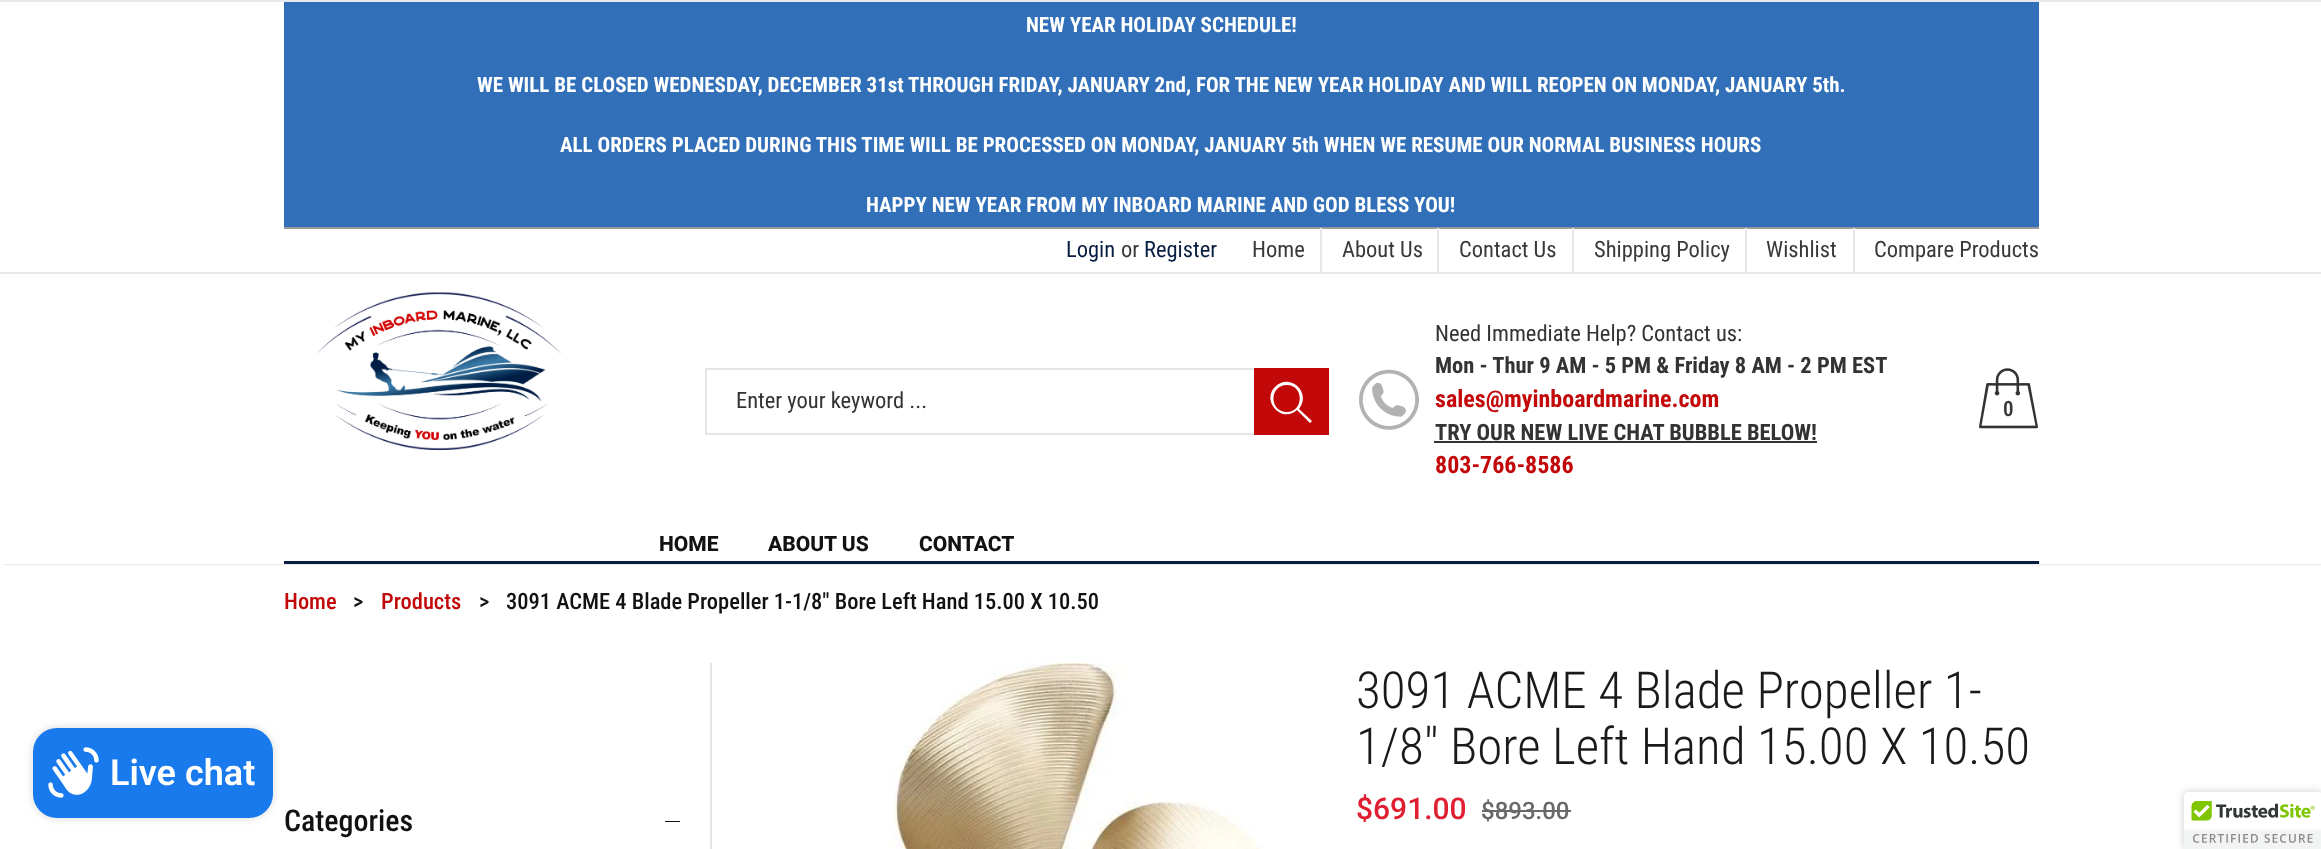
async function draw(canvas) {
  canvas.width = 2321;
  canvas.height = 849;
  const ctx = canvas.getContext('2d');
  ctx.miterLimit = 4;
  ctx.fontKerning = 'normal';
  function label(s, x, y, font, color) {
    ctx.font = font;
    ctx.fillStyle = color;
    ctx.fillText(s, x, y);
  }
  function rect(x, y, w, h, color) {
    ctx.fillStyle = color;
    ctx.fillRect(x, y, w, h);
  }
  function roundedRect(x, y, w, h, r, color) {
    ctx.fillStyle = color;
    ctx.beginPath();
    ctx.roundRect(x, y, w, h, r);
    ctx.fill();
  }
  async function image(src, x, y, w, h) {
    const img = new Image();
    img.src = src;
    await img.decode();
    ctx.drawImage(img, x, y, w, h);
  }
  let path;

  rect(0, 0, 2321, 849, '#fff');
  ctx.save();
  ctx.beginPath();
  ctx.rect(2, 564, 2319, 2);
  ctx.clip();
  ctx.fillStyle = '#ccc8cc';
  ctx.filter = 'blur(1px)';
  ctx.beginPath();
  ctx.rect(3, 3, 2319, 561);
  ctx.fill();
  ctx.filter = 'none';
  ctx.restore();
  rect(0, 0, 2321, 2, '#e7e8eb');
  rect(284, 2, 1755, 225, '#3170b9');
  rect(284, 227, 1755, 2, '#999');
  label('NEW YEAR HOLIDAY SCHEDULE!', 1026, 32, 'bold 21px Roboto Condensed', '#fff');
  label('WE WILL BE CLOSED WEDNESDAY, DECEMBER 31st THROUGH FRIDAY, JANUARY 2nd, FOR THE NEW YEAR HOLIDAY AND WILL REOPEN ON MONDAY, JANUARY 5th.', 477, 92, 'bold 21px Roboto Condensed', '#fff');
  label('ALL ORDERS PLACED DURING THIS TIME WILL BE PROCESSED ON MONDAY, JANUARY 5th WHEN WE RESUME OUR NORMAL BUSINESS HOURS', 560, 152, 'bold 21px Roboto Condensed', '#fff');
  label('HAPPY NEW YEAR FROM MY INBOARD MARINE AND GOD BLESS YOU!', 866, 212, 'bold 21px Roboto Condensed', '#fff');
  rect(0, 272, 2321, 2, '#e7e8eb');
  label('Login', 1066, 257, '22.5px Roboto Condensed', '#071d42');
  label('or', 1121, 257, '22.5px Roboto Condensed', '#393939');
  label('Register', 1144, 257, '22.5px Roboto Condensed', '#071d42');
  rect(1320, 228, 2, 44, '#e7e8eb');
  label('Home', 1252, 257, '22.5px Roboto Condensed', '#393939');
  rect(1437, 228, 2, 44, '#e7e8eb');
  label('About Us', 1342, 257, '22.5px Roboto Condensed', '#393939');
  rect(1572, 228, 2, 44, '#e7e8eb');
  label('Contact Us', 1459, 257, '22.5px Roboto Condensed', '#393939');
  rect(1745, 228, 2, 44, '#e7e8eb');
  label('Shipping Policy', 1594, 257, '22.5px Roboto Condensed', '#393939');
  rect(1853, 228, 2, 44, '#e7e8eb');
  label('Wishlist', 1766, 257, '22.5px Roboto Condensed', '#393939');
  label('Compare Products', 1874, 257, '22.5px Roboto Condensed', '#393939');
  await image('assets/img1.png', 316, 292, 245, 158);
  ctx.strokeStyle = '#e3e5e7';
  ctx.lineWidth = 2;
  ctx.strokeRect(706, 369, 622, 65);
  label('Enter your keyword ...', 736, 408, '22.5px Roboto Condensed', '#333');
  rect(1254, 368, 75, 67, '#c20808');
  ctx.fillStyle = '#fff';
  path = new Path2D('M1312 421L1299 409C1312 393 1290 372 1275 387C1261 401 1282 424 1297 410L1310 423ZM1287 412C1269 412 1269 385 1287 385C1304 385 1304 412 1287 412Z');
  ctx.fill(path);
  await image('assets/img2.png', 1359, 369, 60, 61);
  label('Need Immediate Help? Contact us:', 1435, 341, '22.5px Roboto Condensed', '#333');
  label('Mon - Thur 9 AM - 5 PM & Friday 8 AM - 2 PM EST', 1435, 373, 'bold 22.5px Roboto Condensed', '#333');
  label('sales@myinboardmarine.com', 1435, 407, 'bold 24px Roboto Condensed', '#c20808');
  label('TRY OUR NEW LIVE CHAT BUBBLE BELOW!', 1435, 440, 'bold 22.5px Roboto Condensed', '#333');
  rect(1434, 441, 383, 2, '#333');
  label('803-766-8586', 1435, 473, 'bold 24px Roboto Condensed', '#c20808');
  await image('assets/img3.png', 1979, 368, 59, 61);
  label('0', 2003, 416, '600 21px Roboto Condensed', '#393939');
  rect(284, 561, 1755, 3, '#071d42');
  label('HOME', 659, 551, '800 21px Roboto', '#121212');
  label('ABOUT US', 768, 551, '800 21px Roboto', '#121212');
  label('CONTACT', 919, 551, '800 21px Roboto', '#121212');
  ctx.fillStyle = '#00000026';
  ctx.filter = 'blur(4px)';
  ctx.beginPath();
  ctx.roundRect(33, 728, 240, 90, 24);
  ctx.fill();
  ctx.filter = 'none';
  roundedRect(33, 728, 240, 90, 24, '#187aec');
  await image('assets/img4.png', 48, 747, 51, 51);
  label('Live chat', 110, 785, '600 36px Roboto', '#fff');
  label('Home', 284, 609, '500 22.5px Roboto Condensed', '#c20808');
  label('>', 353, 609, '500 22.5px Roboto Condensed', '#121212');
  label('Products', 381, 609, '500 22.5px Roboto Condensed', '#c20808');
  label('>', 479, 609, '500 22.5px Roboto Condensed', '#121212');
  label('3091 ACME 4 Blade Propeller 1-1/8" Bore Left Hand 15.00 X 10.50', 506, 609, '500 22.5px Roboto Condensed', '#121212');
  rect(710, 663, 2, 186, '#e3e5e7');
  label('Categories', 284, 831, '500 30px Roboto Condensed', '#121212');
  rect(665, 821, 15, 1, '#121212');
  await image('assets/img5.png', 890, 663, 373, 186);
  label('3091 ACME 4 Blade Propeller 1-', 1356, 708, '300 51px Roboto Condensed', '#1a1a1a');
  label('1/8" Bore Left Hand 15.00 X 10.50', 1356, 764, '300 51px Roboto Condensed', '#1a1a1a');
  label('$691.00', 1356, 819, '500 30px Roboto', '#df1e31');
  label('$893.00', 1481, 819, '500 24px Roboto', '#696969');
  rect(1482, 810, 89, 2, '#696969');
  ctx.fillStyle = '#00000033';
  ctx.filter = 'blur(4px)';
  ctx.beginPath();
  ctx.roundRect(2184, 792, 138, 57, 3);
  ctx.fill();
  ctx.filter = 'none';
  ctx.fillStyle = '#fff';
  path = new Path2D('M2187 792H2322V849H2184V795C2184 793.5 2185.5 792 2187 792Z');
  ctx.fill(path);
  await image('assets/img6.png', 2184, 792, 137, 57);
}

draw(document.querySelector('canvas'));
